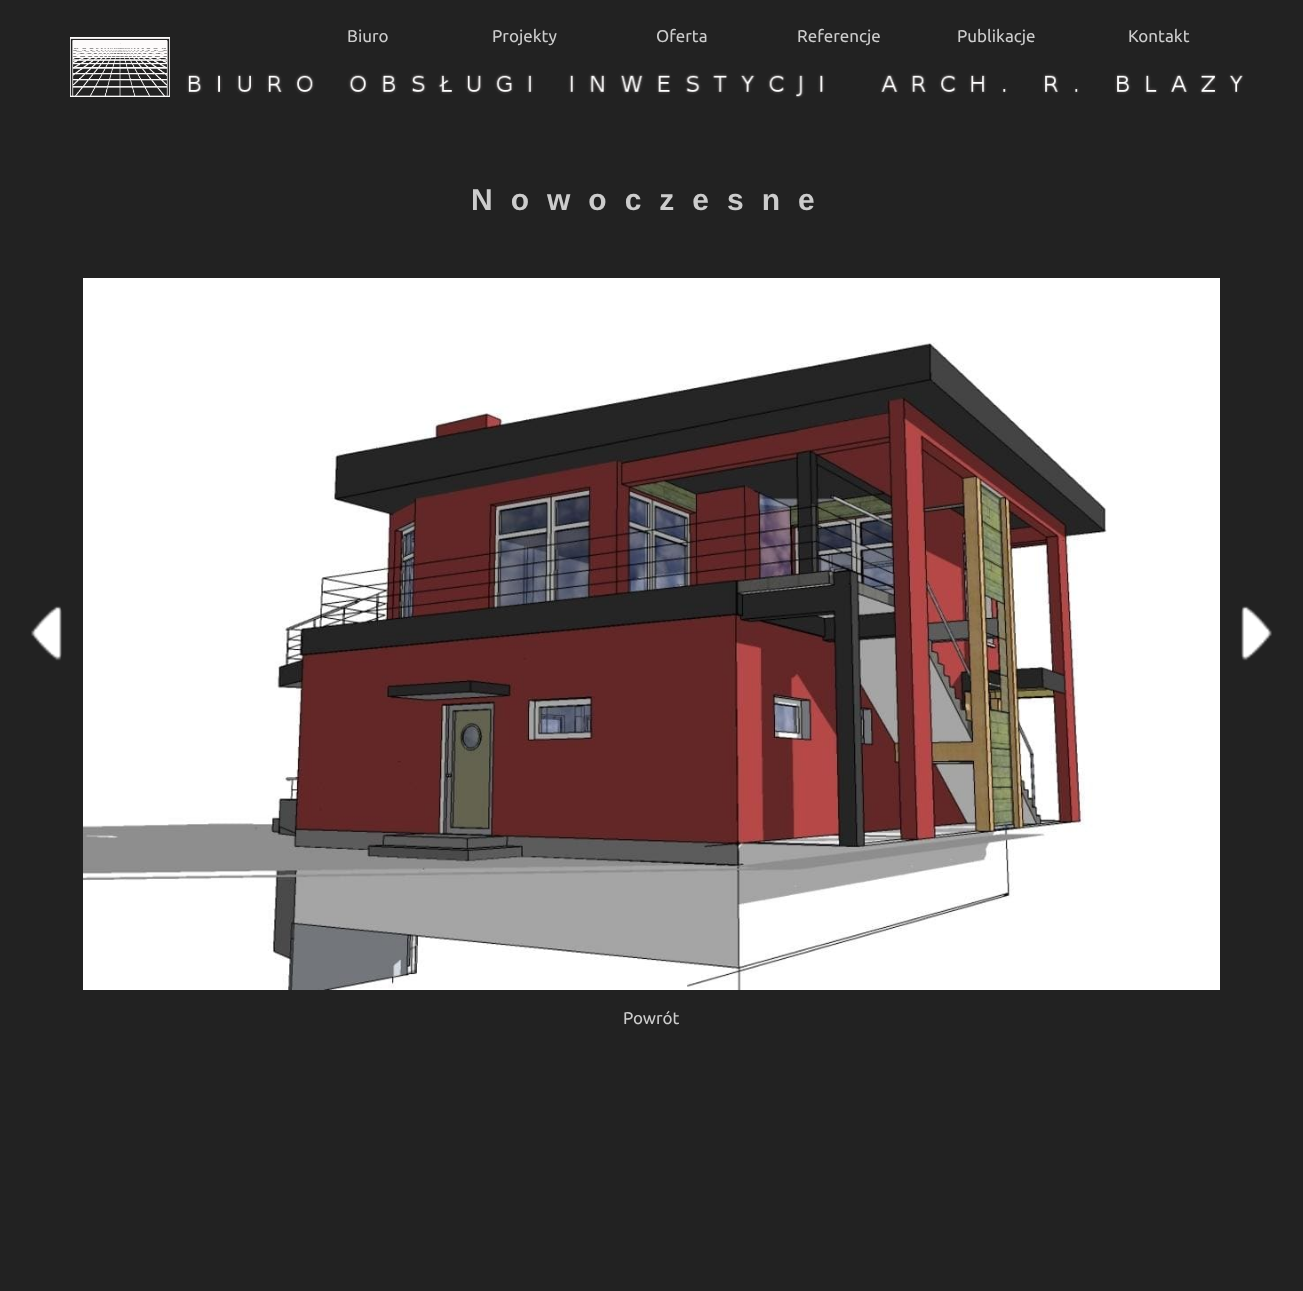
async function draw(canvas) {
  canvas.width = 1303;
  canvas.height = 1291;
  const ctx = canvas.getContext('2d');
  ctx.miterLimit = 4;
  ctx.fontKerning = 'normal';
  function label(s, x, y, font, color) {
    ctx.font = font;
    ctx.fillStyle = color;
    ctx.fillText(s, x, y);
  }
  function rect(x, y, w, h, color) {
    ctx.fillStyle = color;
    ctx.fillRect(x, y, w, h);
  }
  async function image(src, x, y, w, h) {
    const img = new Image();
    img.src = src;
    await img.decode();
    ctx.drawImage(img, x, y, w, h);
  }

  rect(0, 0, 1303, 1291, '#222');
  await image('assets/img1.png', 70, 37, 100, 60);
  label('Biuro', 347, 42, '17px Ubuntu', '#ccc');
  label('Projekty', 492, 42, '17px Ubuntu', '#ccc');
  label('Oferta', 656, 42, '17px Ubuntu', '#ccc');
  label('Referencje', 797, 42, '17px Ubuntu', '#ccc');
  label('Publikacje', 957, 42, '17px Ubuntu', '#ccc');
  label('Kontakt', 1128, 42, '17px Ubuntu', '#ccc');
  await image('assets/img2.png', 186, 73, 1058, 25);
  ctx.letterSpacing = '18px';
  label('Nowoczesne', 471, 210, 'bold 30px Liberation Sans', '#ccc');
  await image('assets/img3.png', 31, 606, 31, 55);
  await image('assets/img4.png', 83, 278, 1137, 712);
  await image('assets/img5.png', 1241, 606, 31, 55);
  ctx.letterSpacing = '0px';
  label('Powrót', 623, 1024, '17px Ubuntu', '#ccc');
}

draw(document.querySelector('canvas'));
